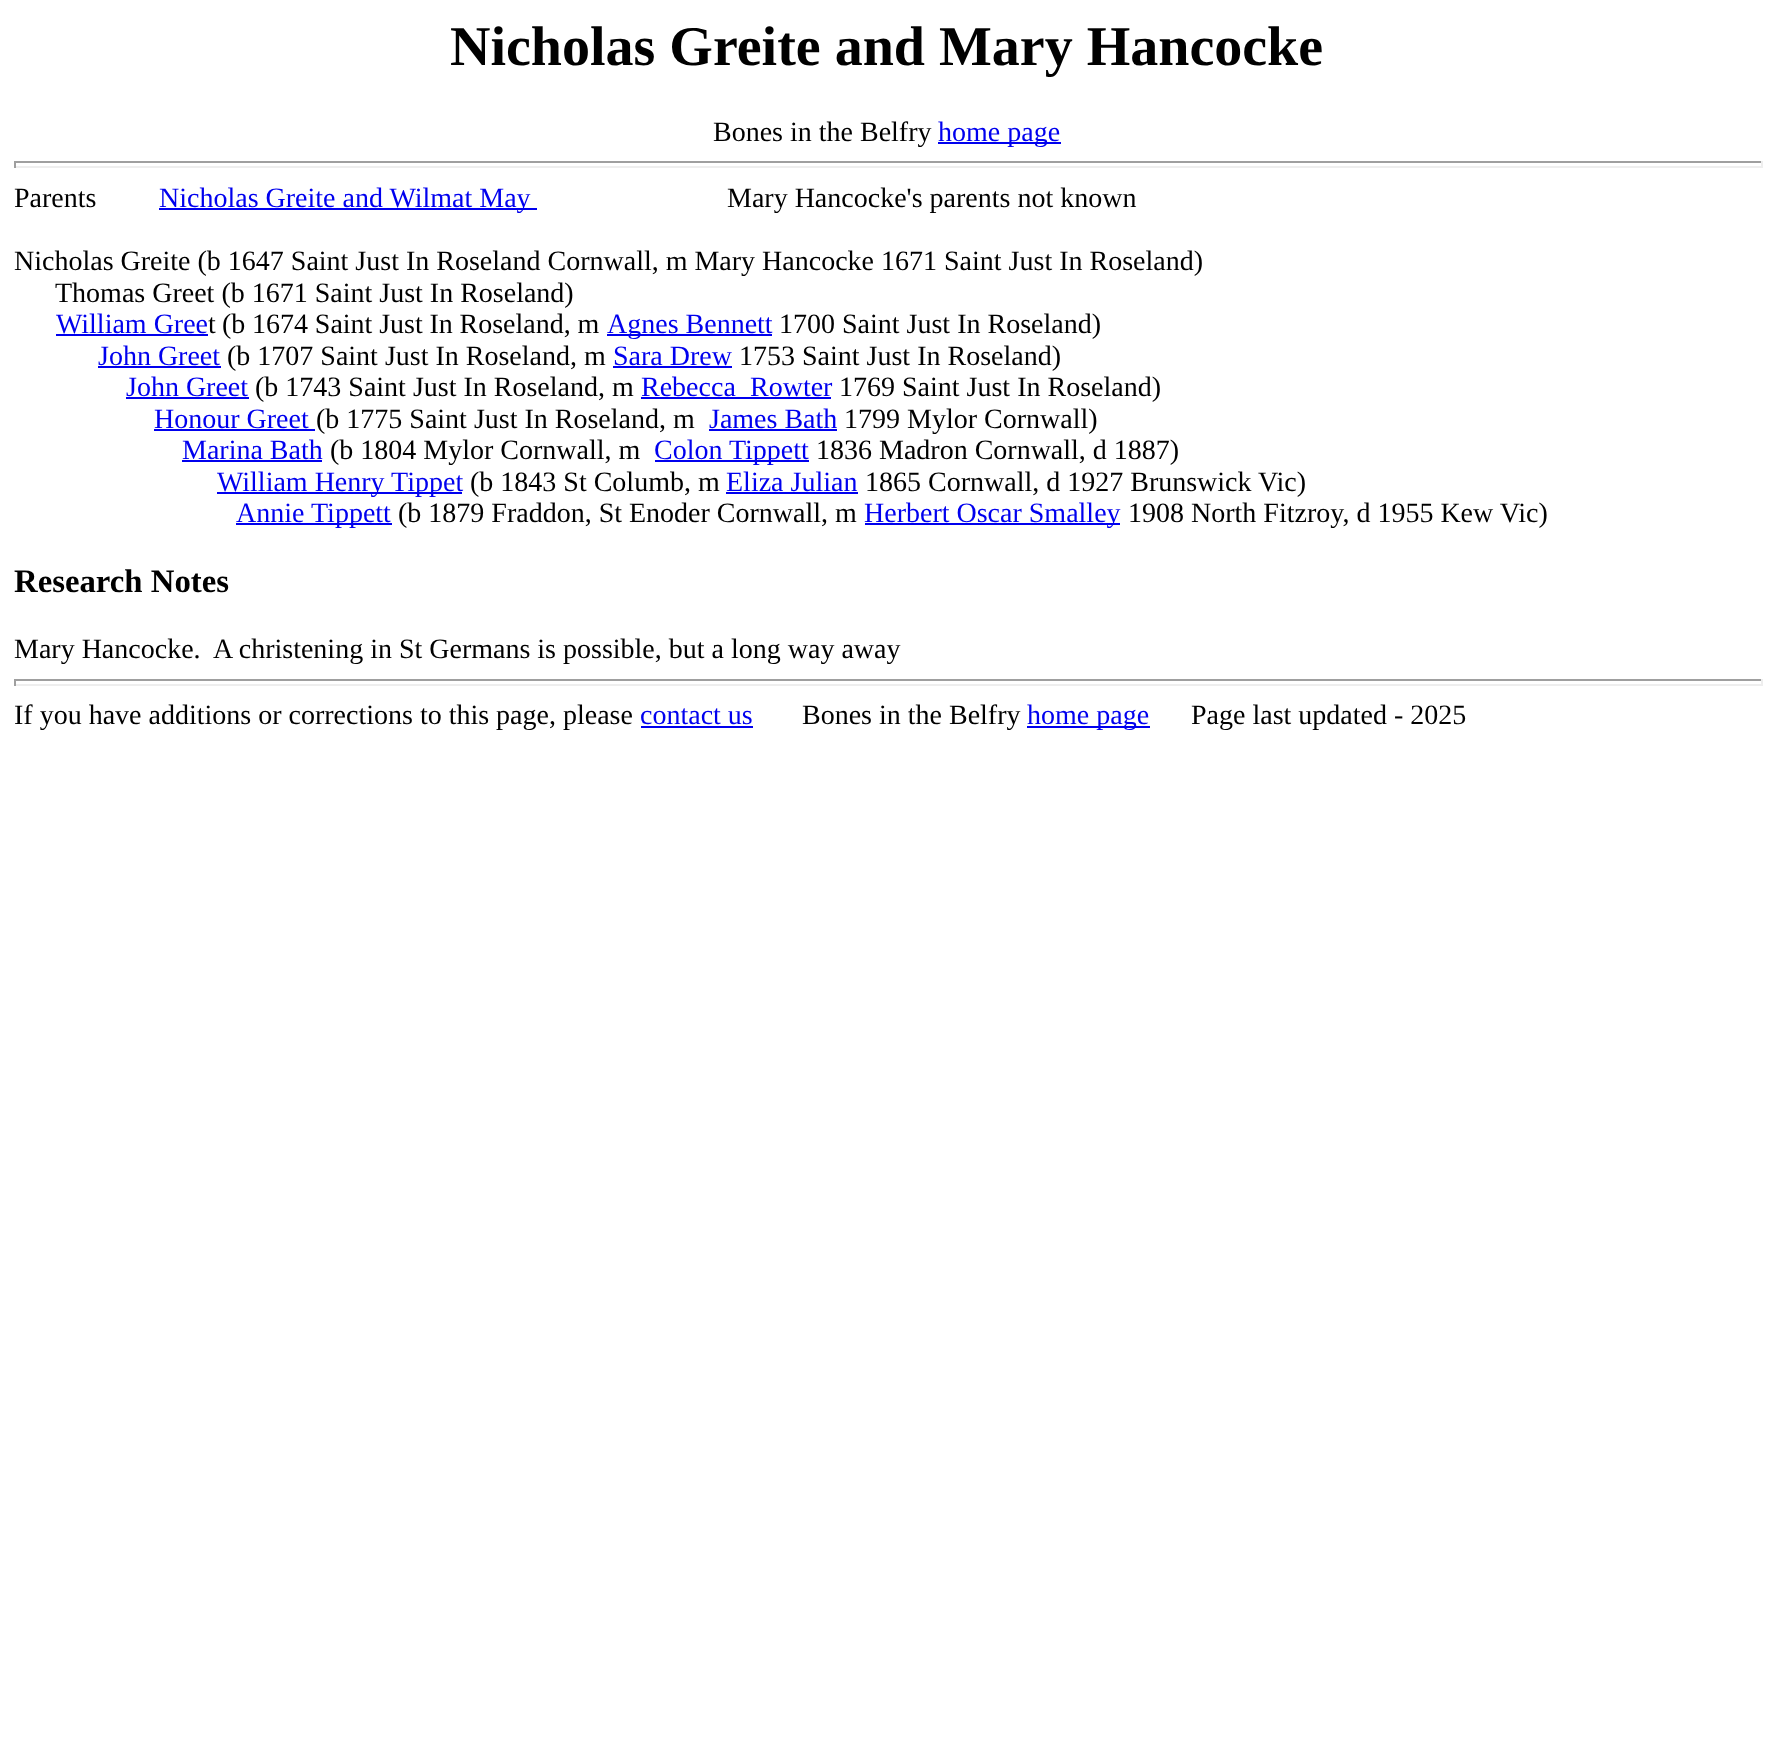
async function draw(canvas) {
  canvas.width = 1772;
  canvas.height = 1750;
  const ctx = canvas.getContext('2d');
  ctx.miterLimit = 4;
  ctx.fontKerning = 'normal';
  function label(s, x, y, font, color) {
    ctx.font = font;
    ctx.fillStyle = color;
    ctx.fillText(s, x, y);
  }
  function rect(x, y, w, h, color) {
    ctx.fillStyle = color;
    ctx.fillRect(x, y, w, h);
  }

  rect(0, 0, 1772, 1750, '#fff');
  label('Nicholas Greite and Mary Hancocke', 450, 65, 'bold 56px Liberation Serif', '#000');
  label('Bones in the Belfry', 713, 141, '28px Liberation Serif', '#000');
  rect(938, 142, 123, 2, '#00e');
  label('home page', 938, 141, '28px Liberation Serif', '#00e');
  rect(14, 161, 1748, 2, '#9f9f9f');
  rect(1761, 161, 2, 7, '#eee');
  rect(14, 166, 1748, 2, '#eee');
  rect(14, 161, 2, 7, '#9f9f9f');
  label('Parents', 14, 207, '28px Liberation Serif', '#000');
  rect(159, 208, 378, 2, '#00e');
  label('Nicholas Greite and Wilmat May', 159, 207, '28px Liberation Serif', '#00e');
  label('Mary Hancocke\'s parents not known', 727, 207, '28px Liberation Serif', '#000');
  label('Nicholas Greite (b 1647 Saint Just In Roseland Cornwall, m Mary Hancocke 1671 Saint Just In Roseland)', 14, 270, '28px Liberation Serif', '#000');
  label('Thomas Greet (b 1671 Saint Just In Roseland)', 55, 302, '28px Liberation Serif', '#000');
  label('William Gree', 56, 333, '28px Liberation Serif', '#00e');
  rect(56, 334, 152, 2, '#00e');
  label('t', 208, 333, '28px Liberation Serif', '#000');
  ctx.wordSpacing = '-0.25px';
  label('(b 1674 Saint Just In Roseland, m', 222, 333, '28px Liberation Serif', '#000');
  rect(607, 334, 165, 2, '#00e');
  ctx.wordSpacing = '0px';
  label('Agnes Bennett', 607, 333, '28px Liberation Serif', '#00e');
  label('1700 Saint Just In Roseland)', 779, 333, '28px Liberation Serif', '#000');
  label('John Greet', 98, 365, '28px Liberation Serif', '#00e');
  rect(98, 366, 123, 2, '#00e');
  label('(b 1707 Saint Just In Roseland, m', 227, 365, '28px Liberation Serif', '#000');
  label('Sara Drew', 613, 365, '28px Liberation Serif', '#00e');
  rect(613, 366, 119, 2, '#00e');
  label('1753 Saint Just In Roseland)', 739, 365, '28px Liberation Serif', '#000');
  label('John Greet', 126, 396, '28px Liberation Serif', '#00e');
  rect(126, 397, 123, 2, '#00e');
  label('(b 1743 Saint Just In Roseland, m', 255, 396, '28px Liberation Serif', '#000');
  label('Rebecca', 641, 396, '28px Liberation Serif', '#00e');
  label('Rowter', 750, 396, '28px Liberation Serif', '#00e');
  rect(641, 397, 190, 2, '#00e');
  label('1769 Saint Just In Roseland)', 839, 396, '28px Liberation Serif', '#000');
  label('Honour Greet', 154, 428, '28px Liberation Serif', '#00e');
  rect(154, 429, 161, 2, '#00e');
  label('(b 1775 Saint Just In Roseland, m', 316, 428, '28px Liberation Serif', '#000');
  label('James Bath', 709, 428, '28px Liberation Serif', '#00e');
  rect(709, 429, 128, 2, '#00e');
  label('1799 Mylor Cornwall)', 844, 428, '28px Liberation Serif', '#000');
  label('Marina Bath', 182, 459, '28px Liberation Serif', '#00e');
  rect(182, 460, 140, 2, '#00e');
  label('(b 1804 Mylor Cornwall, m', 330, 459, '28px Liberation Serif', '#000');
  rect(655, 460, 154, 2, '#00e');
  label('Colon Tippett', 654, 459, '28px Liberation Serif', '#00e');
  label('1836 Madron Cornwall, d 1887)', 816, 459, '28px Liberation Serif', '#000');
  rect(217, 492, 245, 2, '#00e');
  label('William Henry Tippet', 217, 491, '28px Liberation Serif', '#00e');
  label('(b 1843 St Columb, m', 470, 491, '28px Liberation Serif', '#000');
  label('Eliza Julian', 726, 491, '28px Liberation Serif', '#00e');
  rect(726, 492, 132, 2, '#00e');
  label('1865 Cornwall, d 1927 Brunswick Vic)', 865, 491, '28px Liberation Serif', '#000');
  label('Annie', 236, 522, '28px Liberation Serif', '#00e');
  rect(236, 523, 156, 2, '#00e');
  label('Tippett', 311, 522, '28px Liberation Serif', '#00e');
  label('(b 1879 Fraddon, St Enoder Cornwall, m', 398, 522, '28px Liberation Serif', '#000');
  rect(865, 523, 255, 2, '#00e');
  label('Herbert Oscar Smalley', 864, 522, '28px Liberation Serif', '#00e');
  label('1908 North Fitzroy, d 1955 Kew Vic)', 1128, 522, '28px Liberation Serif', '#000');
  label('Research Notes', 14, 592, 'bold 32.75px Liberation Serif', '#000');
  label('Mary Hancocke.  A christening in St Germans is possible, but a long way away', 14, 658, '28px Liberation Serif', '#000');
  rect(14, 679, 1748, 2, '#9f9f9f');
  rect(1761, 679, 2, 7, '#eee');
  rect(14, 684, 1748, 2, '#eee');
  rect(14, 679, 2, 7, '#9f9f9f');
  label('If you have additions or corrections to this page, please', 14, 724, '28px Liberation Serif', '#000');
  label('contact us', 640, 724, '28px Liberation Serif', '#00e');
  rect(641, 726, 112, 2, '#00e');
  label('Bones in the Belfry', 802, 724, '28px Liberation Serif', '#000');
  rect(1027, 726, 123, 2, '#00e');
  label('home page', 1027, 724, '28px Liberation Serif', '#00e');
  label('Page last updated - 2025', 1191, 724, '28px Liberation Serif', '#000');
}

draw(document.querySelector('canvas'));
